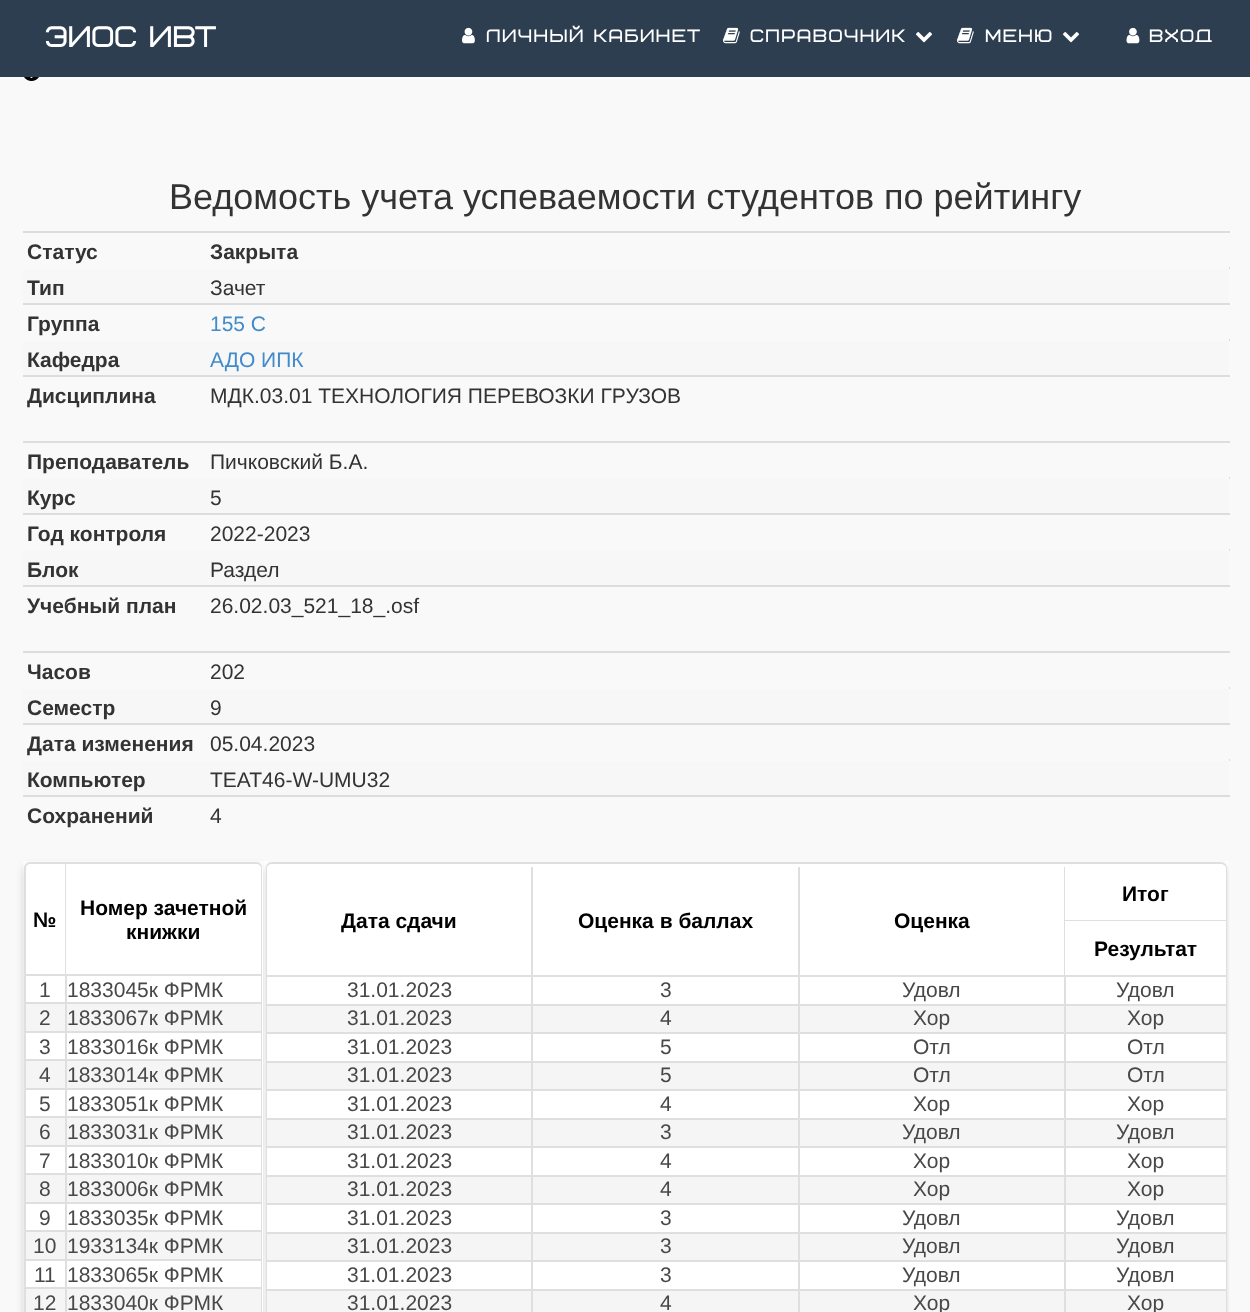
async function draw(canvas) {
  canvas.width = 1250;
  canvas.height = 1312;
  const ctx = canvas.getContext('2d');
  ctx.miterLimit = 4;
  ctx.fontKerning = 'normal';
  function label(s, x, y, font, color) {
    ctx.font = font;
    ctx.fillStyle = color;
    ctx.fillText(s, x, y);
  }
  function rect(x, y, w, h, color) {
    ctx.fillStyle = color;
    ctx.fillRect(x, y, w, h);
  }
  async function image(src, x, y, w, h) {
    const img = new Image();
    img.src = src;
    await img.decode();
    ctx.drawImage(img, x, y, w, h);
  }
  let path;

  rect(0, 0, 1250, 1312, '#faf9f9');
  rect(0, 0, 1250, 77, '#2d3e50');
  label('ЭИОС ИВТ', 45, 47, '29.5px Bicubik', '#fff');
  await image('assets/img1.png', 462, 27, 13, 17);
  ctx.letterSpacing = '1.5px';
  label('ЛИЧНЫЙ КАБИНЕТ', 486, 42, '18px Bicubik', '#fff');
  await image('assets/img2.png', 723, 27, 17, 17);
  label('СПРАВОЧНИК', 750, 42, '18px Bicubik', '#fff');
  await image('assets/img3.png', 915, 32, 18, 11);
  await image('assets/img2.png', 957, 27, 17, 17);
  label('МЕНЮ', 985, 42, '18px Bicubik', '#fff');
  await image('assets/img3.png', 1062, 32, 18, 11);
  await image('assets/img4.png', 1126, 27, 14, 17);
  label('ВХОД', 1149, 42, '18px Bicubik', '#fff');
  await image('assets/img5.png', 24, 77, 15, 4);
  ctx.letterSpacing = '0px';
  label('Ведомость учета успеваемости студентов по рейтингу', 169, 209, '36px Liberation Sans', '#333');
  label('Статус', 27, 259, 'bold 21px Liberation Sans', '#333');
  rect(23, 231, 1207, 2, '#ddd');
  label('Закрыта', 210, 259, 'bold 21px Liberation Sans', '#333');
  rect(23, 269, 1206, 34, '#f7f7f7');
  label('Тип', 27, 295, 'bold 21px Liberation Sans', '#333');
  rect(1229, 267, 1, 2, '#ddd');
  label('Зачет', 210, 295, '21px Liberation Sans', '#333');
  label('Группа', 27, 331, 'bold 21px Liberation Sans', '#333');
  rect(23, 303, 1207, 2, '#ddd');
  label('155 С', 210, 331, '21px Liberation Sans', '#428bca');
  rect(23, 341, 1206, 34, '#f7f7f7');
  label('Кафедра', 27, 367, 'bold 21px Liberation Sans', '#333');
  rect(1229, 339, 1, 2, '#ddd');
  label('АДО ИПК', 210, 367, '21px Liberation Sans', '#428bca');
  label('Дисциплина', 27, 403, 'bold 21px Liberation Sans', '#333');
  rect(23, 375, 1207, 2, '#ddd');
  label('МДК.03.01 ТЕХНОЛОГИЯ ПЕРЕВОЗКИ ГРУЗОВ', 210, 403, '21px Liberation Sans', '#333');
  label('Преподаватель', 27, 469, 'bold 21px Liberation Sans', '#333');
  rect(23, 441, 1207, 2, '#ddd');
  label('Пичковский Б.А.', 210, 469, '21px Liberation Sans', '#333');
  rect(23, 479, 1206, 34, '#f7f7f7');
  label('Курс', 27, 505, 'bold 21px Liberation Sans', '#333');
  rect(1229, 477, 1, 2, '#ddd');
  label('5', 210, 505, '21px Liberation Sans', '#333');
  label('Год контроля', 27, 541, 'bold 21px Liberation Sans', '#333');
  rect(23, 513, 1207, 2, '#ddd');
  label('2022-2023', 210, 541, '21px Liberation Sans', '#333');
  rect(23, 551, 1206, 34, '#f7f7f7');
  label('Блок', 27, 577, 'bold 21px Liberation Sans', '#333');
  rect(1229, 549, 1, 2, '#ddd');
  label('Раздел', 210, 577, '21px Liberation Sans', '#333');
  label('Учебный план', 27, 613, 'bold 21px Liberation Sans', '#333');
  rect(23, 585, 1207, 2, '#ddd');
  label('26.02.03_521_18_.osf', 210, 613, '21px Liberation Sans', '#333');
  label('Часов', 27, 679, 'bold 21px Liberation Sans', '#333');
  rect(23, 651, 1207, 2, '#ddd');
  label('202', 210, 679, '21px Liberation Sans', '#333');
  rect(23, 689, 1206, 34, '#f7f7f7');
  label('Семестр', 27, 715, 'bold 21px Liberation Sans', '#333');
  rect(1229, 687, 1, 2, '#ddd');
  label('9', 210, 715, '21px Liberation Sans', '#333');
  label('Дата изменения', 27, 751, 'bold 21px Liberation Sans', '#333');
  rect(23, 723, 1207, 2, '#ddd');
  label('05.04.2023', 210, 751, '21px Liberation Sans', '#333');
  rect(23, 761, 1206, 34, '#f7f7f7');
  label('Компьютер', 27, 787, 'bold 21px Liberation Sans', '#333');
  rect(1229, 759, 1, 2, '#ddd');
  label('TEAT46-W-UMU32', 210, 787, '21px Liberation Sans', '#333');
  label('Сохранений', 27, 823, 'bold 21px Liberation Sans', '#333');
  rect(23, 795, 1207, 2, '#ddd');
  label('4', 210, 823, '21px Liberation Sans', '#333');
  rect(23, 861, 241, 451, '#fff');
  ctx.save();
  path = new Path2D('M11 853H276V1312H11ZM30 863H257C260.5 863 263 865.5 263 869V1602H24V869C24 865.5 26.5 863 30 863Z');
  ctx.clip(path, 'evenodd');
  ctx.fillStyle = '#00000029';
  ctx.filter = 'blur(4px)';
  ctx.beginPath();
  ctx.roundRect(24, 866, 239, 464, 6);
  ctx.fill();
  ctx.filter = 'none';
  ctx.restore();
  ctx.fillStyle = '#dfdfdf';
  path = new Path2D('M30 862H256C260 862 262 865 262 868V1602H24V868C24 865 27 862 30 862ZM30 864H256C259 864 261 866 261 868V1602H26V868C26 866 28 864 30 864Z');
  ctx.fill(path, 'evenodd');
  ctx.fillStyle = '#fff';
  ctx.beginPath();
  ctx.roundRect(26, 864, 39, 110, [5, 0, 0, 0]);
  ctx.fill();
  rect(65, 864, 1, 111, '#dfdfdf');
  rect(26, 974, 235, 2, '#dfdfdf');
  label('№', 33, 927, 'bold 21px Liberation Sans', '#000');
  ctx.fillStyle = '#fff';
  ctx.beginPath();
  ctx.roundRect(66, 864, 195, 110, [0, 5, 0, 0]);
  ctx.fill();
  label('Номер зачетной', 80, 915, 'bold 21px Liberation Sans', '#000');
  label('книжки', 126, 939, 'bold 21px Liberation Sans', '#000');
  rect(26, 1004, 235, 27, '#f5f5f5');
  rect(65, 975, 2, 57, '#dfdfdf');
  rect(26, 1002, 235, 2, '#dfdfdf');
  label('1', 39, 997, '21px Liberation Sans', '#484848');
  label('1833045к ФРМК', 67, 997, '21px Liberation Sans', '#484848');
  rect(26, 1031, 235, 2, '#dfdfdf');
  label('2', 39, 1025, '21px Liberation Sans', '#484848');
  label('1833067к ФРМК', 67, 1025, '21px Liberation Sans', '#484848');
  rect(26, 1061, 235, 27, '#f5f5f5');
  rect(65, 1032, 2, 57, '#dfdfdf');
  rect(26, 1059, 235, 2, '#dfdfdf');
  label('3', 39, 1054, '21px Liberation Sans', '#484848');
  label('1833016к ФРМК', 67, 1054, '21px Liberation Sans', '#484848');
  rect(26, 1088, 235, 2, '#dfdfdf');
  label('4', 39, 1082, '21px Liberation Sans', '#484848');
  label('1833014к ФРМК', 67, 1082, '21px Liberation Sans', '#484848');
  rect(26, 1118, 235, 27, '#f5f5f5');
  rect(65, 1089, 2, 57, '#dfdfdf');
  rect(26, 1116, 235, 2, '#dfdfdf');
  label('5', 39, 1111, '21px Liberation Sans', '#484848');
  label('1833051к ФРМК', 67, 1111, '21px Liberation Sans', '#484848');
  rect(26, 1145, 235, 2, '#dfdfdf');
  label('6', 39, 1139, '21px Liberation Sans', '#484848');
  label('1833031к ФРМК', 67, 1139, '21px Liberation Sans', '#484848');
  rect(26, 1175, 235, 27, '#f5f5f5');
  rect(65, 1146, 2, 57, '#dfdfdf');
  rect(26, 1173, 235, 2, '#dfdfdf');
  label('7', 39, 1168, '21px Liberation Sans', '#484848');
  label('1833010к ФРМК', 67, 1168, '21px Liberation Sans', '#484848');
  rect(26, 1202, 235, 2, '#dfdfdf');
  label('8', 39, 1196, '21px Liberation Sans', '#484848');
  label('1833006к ФРМК', 67, 1196, '21px Liberation Sans', '#484848');
  rect(26, 1232, 235, 27, '#f5f5f5');
  rect(65, 1203, 2, 57, '#dfdfdf');
  rect(26, 1230, 235, 2, '#dfdfdf');
  label('9', 39, 1225, '21px Liberation Sans', '#484848');
  label('1833035к ФРМК', 67, 1225, '21px Liberation Sans', '#484848');
  rect(26, 1259, 235, 2, '#dfdfdf');
  label('10', 33, 1253, '21px Liberation Sans', '#484848');
  label('1933134к ФРМК', 67, 1253, '21px Liberation Sans', '#484848');
  rect(26, 1289, 235, 23, '#f5f5f5');
  rect(65, 1260, 2, 52, '#dfdfdf');
  rect(26, 1287, 235, 2, '#dfdfdf');
  label('11', 34, 1282, '21px Liberation Sans', '#484848');
  label('1833065к ФРМК', 67, 1282, '21px Liberation Sans', '#484848');
  label('12', 33, 1310, '21px Liberation Sans', '#484848');
  label('1833040к ФРМК', 67, 1310, '21px Liberation Sans', '#484848');
  rect(264, 861, 965, 451, '#fff');
  ctx.save();
  ctx.beginPath();
  ctx.rect(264, 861, 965, 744);
  ctx.clip();
  path = new Path2D('M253 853H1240V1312H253ZM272 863H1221C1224.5 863 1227 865.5 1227 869V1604H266V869C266 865.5 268.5 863 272 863Z');
  ctx.clip(path, 'evenodd');
  ctx.fillStyle = '#00000029';
  ctx.filter = 'blur(4px)';
  ctx.beginPath();
  ctx.roundRect(266, 866, 961, 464, 6);
  ctx.fill();
  ctx.filter = 'none';
  ctx.restore();
  ctx.fillStyle = '#dfdfdf';
  path = new Path2D('M272 862H1221C1224 862 1227 865 1227 868V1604H266V868C266 865 268 862 272 862ZM272 864H1221C1223 864 1226 866 1226 868V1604H267V868C267 866 269 864 272 864Z');
  ctx.fill(path, 'evenodd');
  rect(1225, 867, 1, 1, '#fff');
  rect(1065, 920, 161, 1, '#dfdfdf');
  label('Итог', 1122, 901, 'bold 21px Liberation Sans', '#000');
  rect(531, 867, 2, 138, '#dfdfdf');
  rect(267, 975, 266, 2, '#dfdfdf');
  label('Дата сдачи', 341, 928, 'bold 21px Liberation Sans', '#000');
  rect(798, 867, 2, 138, '#dfdfdf');
  rect(533, 975, 267, 2, '#dfdfdf');
  label('Оценка в баллах', 578, 928, 'bold 21px Liberation Sans', '#000');
  rect(1064, 867, 1, 110, '#dfdfdf');
  rect(800, 975, 426, 2, '#dfdfdf');
  label('Оценка', 894, 928, 'bold 21px Liberation Sans', '#000');
  label('Результат', 1094, 956, 'bold 21px Liberation Sans', '#000');
  rect(267, 1004, 533, 2, '#dfdfdf');
  label('31.01.2023', 347, 997, '21px Liberation Sans', '#484848');
  label('3', 660, 997, '21px Liberation Sans', '#484848');
  rect(1064, 977, 2, 28, '#dfdfdf');
  rect(800, 1004, 426, 2, '#dfdfdf');
  label('Удовл', 902, 997, '21px Liberation Sans', '#484848');
  label('Удовл', 1116, 997, '21px Liberation Sans', '#484848');
  rect(267, 1006, 959, 26, '#f5f5f5');
  rect(531, 1005, 2, 57, '#dfdfdf');
  rect(267, 1032, 266, 2, '#dfdfdf');
  label('31.01.2023', 347, 1025, '21px Liberation Sans', '#484848');
  rect(798, 1005, 2, 57, '#dfdfdf');
  rect(533, 1032, 267, 2, '#dfdfdf');
  label('4', 660, 1025, '21px Liberation Sans', '#484848');
  rect(1064, 1005, 2, 57, '#dfdfdf');
  rect(800, 1032, 426, 2, '#dfdfdf');
  label('Хор', 913, 1025, '21px Liberation Sans', '#484848');
  label('Хор', 1127, 1025, '21px Liberation Sans', '#484848');
  rect(267, 1061, 959, 2, '#dfdfdf');
  label('31.01.2023', 347, 1054, '21px Liberation Sans', '#484848');
  label('5', 660, 1054, '21px Liberation Sans', '#484848');
  label('Отл', 913, 1054, '21px Liberation Sans', '#484848');
  label('Отл', 1127, 1054, '21px Liberation Sans', '#484848');
  rect(267, 1063, 959, 26, '#f5f5f5');
  rect(531, 1062, 2, 57, '#dfdfdf');
  rect(267, 1089, 266, 2, '#dfdfdf');
  label('31.01.2023', 347, 1082, '21px Liberation Sans', '#484848');
  rect(798, 1062, 2, 57, '#dfdfdf');
  rect(533, 1089, 267, 2, '#dfdfdf');
  label('5', 660, 1082, '21px Liberation Sans', '#484848');
  rect(1064, 1062, 2, 57, '#dfdfdf');
  rect(800, 1089, 426, 2, '#dfdfdf');
  label('Отл', 913, 1082, '21px Liberation Sans', '#484848');
  label('Отл', 1127, 1082, '21px Liberation Sans', '#484848');
  rect(267, 1118, 959, 2, '#dfdfdf');
  label('31.01.2023', 347, 1111, '21px Liberation Sans', '#484848');
  label('4', 660, 1111, '21px Liberation Sans', '#484848');
  label('Хор', 913, 1111, '21px Liberation Sans', '#484848');
  label('Хор', 1127, 1111, '21px Liberation Sans', '#484848');
  rect(267, 1120, 959, 26, '#f5f5f5');
  rect(531, 1119, 2, 57, '#dfdfdf');
  rect(267, 1146, 266, 2, '#dfdfdf');
  label('31.01.2023', 347, 1139, '21px Liberation Sans', '#484848');
  rect(798, 1119, 2, 57, '#dfdfdf');
  rect(533, 1146, 267, 2, '#dfdfdf');
  label('3', 660, 1139, '21px Liberation Sans', '#484848');
  rect(1064, 1119, 2, 57, '#dfdfdf');
  rect(800, 1146, 426, 2, '#dfdfdf');
  label('Удовл', 902, 1139, '21px Liberation Sans', '#484848');
  label('Удовл', 1116, 1139, '21px Liberation Sans', '#484848');
  rect(267, 1175, 959, 2, '#dfdfdf');
  label('31.01.2023', 347, 1168, '21px Liberation Sans', '#484848');
  label('4', 660, 1168, '21px Liberation Sans', '#484848');
  label('Хор', 913, 1168, '21px Liberation Sans', '#484848');
  label('Хор', 1127, 1168, '21px Liberation Sans', '#484848');
  rect(267, 1177, 959, 26, '#f5f5f5');
  rect(531, 1176, 2, 57, '#dfdfdf');
  rect(267, 1203, 266, 2, '#dfdfdf');
  label('31.01.2023', 347, 1196, '21px Liberation Sans', '#484848');
  rect(798, 1176, 2, 57, '#dfdfdf');
  rect(533, 1203, 267, 2, '#dfdfdf');
  label('4', 660, 1196, '21px Liberation Sans', '#484848');
  rect(1064, 1176, 2, 57, '#dfdfdf');
  rect(800, 1203, 426, 2, '#dfdfdf');
  label('Хор', 913, 1196, '21px Liberation Sans', '#484848');
  label('Хор', 1127, 1196, '21px Liberation Sans', '#484848');
  rect(267, 1232, 959, 2, '#dfdfdf');
  label('31.01.2023', 347, 1225, '21px Liberation Sans', '#484848');
  label('3', 660, 1225, '21px Liberation Sans', '#484848');
  label('Удовл', 902, 1225, '21px Liberation Sans', '#484848');
  label('Удовл', 1116, 1225, '21px Liberation Sans', '#484848');
  rect(267, 1234, 959, 26, '#f5f5f5');
  rect(531, 1233, 2, 57, '#dfdfdf');
  rect(267, 1260, 266, 2, '#dfdfdf');
  label('31.01.2023', 347, 1253, '21px Liberation Sans', '#484848');
  rect(798, 1233, 2, 57, '#dfdfdf');
  rect(533, 1260, 267, 2, '#dfdfdf');
  label('3', 660, 1253, '21px Liberation Sans', '#484848');
  rect(1064, 1233, 2, 57, '#dfdfdf');
  rect(800, 1260, 426, 2, '#dfdfdf');
  label('Удовл', 902, 1253, '21px Liberation Sans', '#484848');
  label('Удовл', 1116, 1253, '21px Liberation Sans', '#484848');
  rect(267, 1289, 959, 2, '#dfdfdf');
  label('31.01.2023', 347, 1282, '21px Liberation Sans', '#484848');
  label('3', 660, 1282, '21px Liberation Sans', '#484848');
  label('Удовл', 902, 1282, '21px Liberation Sans', '#484848');
  label('Удовл', 1116, 1282, '21px Liberation Sans', '#484848');
  rect(267, 1291, 959, 21, '#f5f5f5');
  rect(531, 1290, 2, 22, '#dfdfdf');
  label('31.01.2023', 347, 1310, '21px Liberation Sans', '#484848');
  rect(798, 1290, 2, 22, '#dfdfdf');
  label('4', 660, 1310, '21px Liberation Sans', '#484848');
  rect(1064, 1290, 2, 22, '#dfdfdf');
  label('Хор', 913, 1310, '21px Liberation Sans', '#484848');
  label('Хор', 1127, 1310, '21px Liberation Sans', '#484848');
}

draw(document.querySelector('canvas'));
